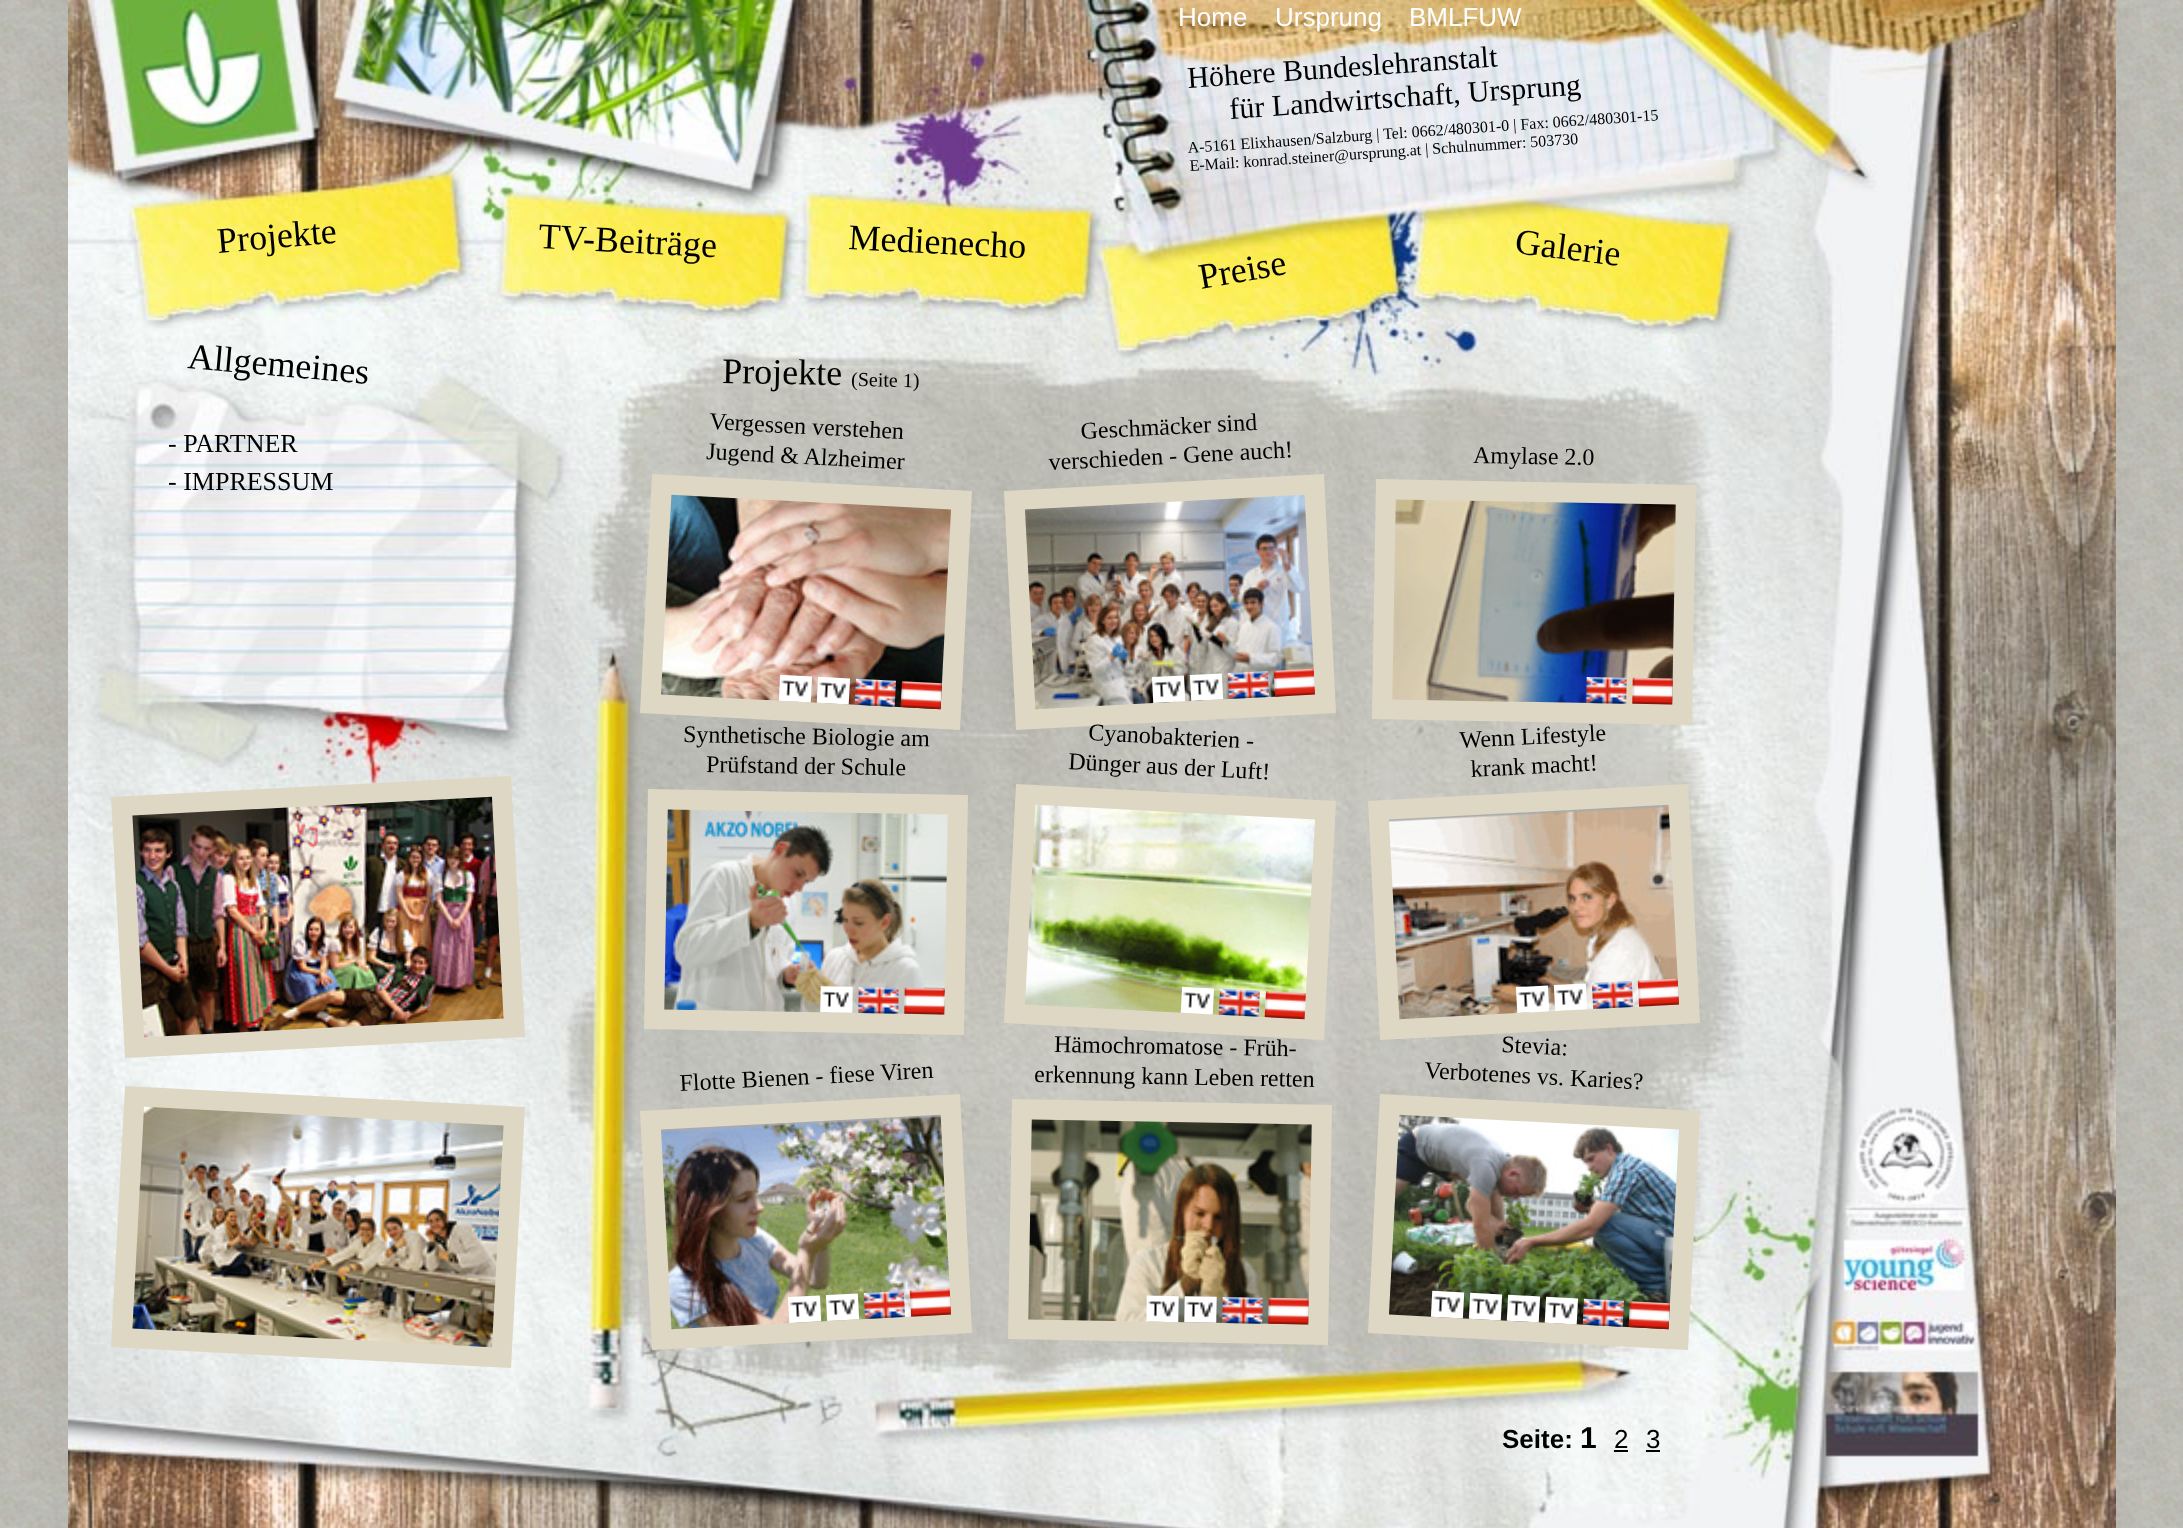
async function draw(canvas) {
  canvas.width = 2183;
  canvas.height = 1528;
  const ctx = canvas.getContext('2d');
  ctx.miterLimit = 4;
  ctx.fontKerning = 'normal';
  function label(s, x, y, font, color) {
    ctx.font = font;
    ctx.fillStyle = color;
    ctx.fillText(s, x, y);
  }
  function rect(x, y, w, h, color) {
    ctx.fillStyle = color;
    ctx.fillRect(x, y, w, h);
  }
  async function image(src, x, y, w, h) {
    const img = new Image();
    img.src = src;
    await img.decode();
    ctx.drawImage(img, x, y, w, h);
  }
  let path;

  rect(0, 0, 2183, 1528, '#fff');
  await image('assets/img1.png', 0, 0, 2183, 1528);
  await image('assets/img2.png', 68, 0, 2048, 1528);
  label('Home', 1178, 26, '26px Liberation Sans', '#fff');
  label('Ursprung', 1275, 26, '26px Liberation Sans', '#fff');
  label('BMLFUW', 1409, 26, '26px Liberation Sans', '#fff');
  ctx.font = '30px Liberation Serif';
  ctx.fillStyle = '#000';
  ctx.save();
  ctx.translate(1188, 88);
  ctx.rotate(-4 * Math.PI / 180);
  ctx.fillText('Höhere Bundeslehranstalt', 0, 0);
  ctx.restore();
  ctx.save();
  ctx.translate(1230, 119);
  ctx.rotate(-4 * Math.PI / 180);
  ctx.fillText('für Landwirtschaft, Ursprung', 0, 0);
  ctx.restore();
  ctx.font = '16px Liberation Serif';
  ctx.save();
  ctx.translate(1188, 153);
  ctx.rotate(-4 * Math.PI / 180);
  ctx.fillText('A-5161 Elixhausen/Salzburg | Tel: 0662/480301-0 | Fax: 0662/480301-15', 0, 0);
  ctx.restore();
  ctx.save();
  ctx.translate(1190, 171);
  ctx.rotate(-4 * Math.PI / 180);
  ctx.fillText('E-Mail: konrad.steiner@ursprung.at | Schulnummer: 503730', 0, 0);
  ctx.restore();
  ctx.font = '36px Liberation Serif';
  ctx.save();
  ctx.translate(218, 253);
  ctx.rotate(-5 * Math.PI / 180);
  ctx.fillText('Projekte', 0, 0);
  ctx.restore();
  ctx.save();
  ctx.translate(538, 248);
  ctx.rotate(3 * Math.PI / 180);
  ctx.fillText('TV-Beiträge', 0, 0);
  ctx.restore();
  ctx.save();
  ctx.translate(848, 249);
  ctx.rotate(3 * Math.PI / 180);
  ctx.fillText('Medienecho', 0, 0);
  ctx.restore();
  ctx.save();
  ctx.translate(1514, 253);
  ctx.rotate(7 * Math.PI / 180);
  ctx.fillText('Galerie', 0, 0);
  ctx.restore();
  ctx.save();
  ctx.translate(1201, 289);
  ctx.rotate(-10 * Math.PI / 180);
  ctx.fillText('Preise', 0, 0);
  ctx.restore();
  ctx.save();
  ctx.translate(187, 368);
  ctx.rotate(5 * Math.PI / 180);
  ctx.fillText('Allgemeines', 0, 0);
  ctx.restore();
  label('- PARTNER', 168, 452, '26px Liberation Serif', '#000');
  label('- IMPRESSUM', 168, 490, '26px Liberation Serif', '#000');
  ctx.fillStyle = '#ded7c3';
  path = new Path2D('M111 797L511 776L525 1037L125 1058Z');
  ctx.fill(path);
  await image('assets/img3.png', 132, 796, 372, 242);
  path = new Path2D('M125 1086L525 1107L511 1368L111 1347Z');
  ctx.fill(path);
  await image('assets/img4.png', 132, 1106, 372, 242);
  ctx.font = '36px Liberation Serif';
  ctx.fillStyle = '#000';
  ctx.save();
  ctx.translate(722, 383);
  ctx.rotate(1 * Math.PI / 180);
  ctx.fillText('Projekte', 0, 0);
  ctx.restore();
  ctx.font = '20px Liberation Serif';
  ctx.save();
  ctx.translate(851, 386);
  ctx.rotate(1 * Math.PI / 180);
  ctx.fillText('(Seite 1)', 0, 0);
  ctx.restore();
  ctx.font = '24px Liberation Serif';
  ctx.save();
  ctx.translate(709, 429);
  ctx.rotate(3 * Math.PI / 180);
  ctx.fillText('Vergessen verstehen', 0, 0);
  ctx.restore();
  ctx.save();
  ctx.translate(706, 459);
  ctx.rotate(3 * Math.PI / 180);
  ctx.fillText('Jugend & Alzheimer', 0, 0);
  ctx.restore();
  ctx.fillStyle = '#ded7c3';
  path = new Path2D('M652 474L972 491L960 730L640 713Z');
  ctx.fill(path);
  await image('assets/img5.png', 661, 494, 290, 216);
  await image('assets/img6.png', 778, 674, 35, 29);
  await image('assets/img7.png', 816, 676, 35, 29);
  await image('assets/img8.png', 854, 678, 42, 29);
  await image('assets/img9.png', 900, 681, 42, 29);
  ctx.fillStyle = '#000';
  ctx.save();
  ctx.translate(1081, 439);
  ctx.rotate(-3 * Math.PI / 180);
  ctx.fillText('Geschmäcker sind', 0, 0);
  ctx.restore();
  ctx.save();
  ctx.translate(1049, 470);
  ctx.rotate(-3 * Math.PI / 180);
  ctx.fillText('verschieden - Gene auch!', 0, 0);
  ctx.restore();
  ctx.fillStyle = '#ded7c3';
  path = new Path2D('M1004 491L1324 474L1336 713L1016 730Z');
  ctx.fill(path);
  await image('assets/img10.png', 1025, 494, 290, 216);
  await image('assets/img11.png', 1151, 675, 35, 28);
  await image('assets/img12.png', 1189, 673, 35, 28);
  await image('assets/img13.png', 1227, 671, 42, 28);
  await image('assets/img14.png', 1273, 668, 42, 29);
  ctx.fillStyle = '#000';
  ctx.save();
  ctx.translate(1473, 463);
  ctx.rotate(1 * Math.PI / 180);
  ctx.fillText('Amylase 2.0', 0, 0);
  ctx.restore();
  ctx.fillStyle = '#ded7c3';
  path = new Path2D('M1376 479L1696 485L1692 725L1372 719Z');
  ctx.fill(path);
  await image('assets/img15.png', 1392, 499, 284, 206);
  await image('assets/img16.png', 1586, 677, 41, 27);
  await image('assets/img17.png', 1632, 677, 41, 28);
  ctx.fillStyle = '#000';
  ctx.save();
  ctx.translate(683, 742);
  ctx.rotate(1 * Math.PI / 180);
  ctx.fillText('Synthetische Biologie am', 0, 0);
  ctx.restore();
  ctx.save();
  ctx.translate(706, 772);
  ctx.rotate(1 * Math.PI / 180);
  ctx.fillText('Prüfstand der Schule', 0, 0);
  ctx.restore();
  ctx.fillStyle = '#ded7c3';
  path = new Path2D('M648 789L968 795L964 1035L644 1029Z');
  ctx.fill(path);
  await image('assets/img18.png', 664, 809, 284, 206);
  await image('assets/img19.png', 820, 986, 33, 27);
  await image('assets/img20.png', 858, 987, 41, 27);
  await image('assets/img21.png', 904, 987, 41, 28);
  ctx.fillStyle = '#000';
  ctx.save();
  ctx.translate(1088, 740);
  ctx.rotate(3 * Math.PI / 180);
  ctx.fillText('Cyanobakterien -', 0, 0);
  ctx.restore();
  ctx.save();
  ctx.translate(1068, 769);
  ctx.rotate(3 * Math.PI / 180);
  ctx.fillText('Dünger aus der Luft!', 0, 0);
  ctx.restore();
  ctx.fillStyle = '#ded7c3';
  path = new Path2D('M1016 784L1336 801L1324 1040L1004 1023Z');
  ctx.fill(path);
  await image('assets/img22.png', 1025, 804, 290, 216);
  await image('assets/img23.png', 1180, 986, 34, 29);
  await image('assets/img24.png', 1218, 988, 42, 29);
  await image('assets/img25.png', 1264, 991, 42, 29);
  ctx.fillStyle = '#000';
  ctx.save();
  ctx.translate(1460, 748);
  ctx.rotate(-3 * Math.PI / 180);
  ctx.fillText('Wenn Lifestyle', 0, 0);
  ctx.restore();
  ctx.save();
  ctx.translate(1471, 777);
  ctx.rotate(-3 * Math.PI / 180);
  ctx.fillText('krank macht!', 0, 0);
  ctx.restore();
  ctx.fillStyle = '#ded7c3';
  path = new Path2D('M1368 801L1688 784L1700 1023L1380 1040Z');
  ctx.fill(path);
  await image('assets/img26.png', 1389, 804, 290, 216);
  await image('assets/img27.png', 1515, 985, 35, 28);
  await image('assets/img28.png', 1553, 983, 34, 28);
  await image('assets/img29.png', 1591, 981, 43, 28);
  await image('assets/img30.png', 1637, 978, 42, 29);
  ctx.fillStyle = '#000';
  ctx.save();
  ctx.translate(680, 1091);
  ctx.rotate(-3 * Math.PI / 180);
  ctx.fillText('Flotte Bienen - fiese Viren', 0, 0);
  ctx.restore();
  ctx.fillStyle = '#ded7c3';
  path = new Path2D('M640 1111L960 1094L972 1333L652 1350Z');
  ctx.fill(path);
  await image('assets/img31.png', 661, 1114, 290, 216);
  await image('assets/img32.png', 787, 1295, 35, 28);
  await image('assets/img33.png', 825, 1293, 35, 28);
  await image('assets/img34.png', 863, 1291, 43, 28);
  await image('assets/img35.png', 909, 1288, 42, 29);
  ctx.fillStyle = '#000';
  ctx.save();
  ctx.translate(1054, 1052);
  ctx.rotate(1 * Math.PI / 180);
  ctx.fillText('Hämochromatose - Früh-', 0, 0);
  ctx.restore();
  ctx.save();
  ctx.translate(1034, 1082);
  ctx.rotate(1 * Math.PI / 180);
  ctx.fillText('erkennung kann Leben retten', 0, 0);
  ctx.restore();
  ctx.fillStyle = '#ded7c3';
  path = new Path2D('M1012 1099L1332 1105L1328 1345L1008 1339Z');
  ctx.fill(path);
  await image('assets/img36.png', 1028, 1119, 284, 206);
  await image('assets/img37.png', 1146, 1295, 33, 28);
  await image('assets/img38.png', 1184, 1296, 33, 27);
  await image('assets/img39.png', 1222, 1297, 41, 27);
  await image('assets/img40.png', 1268, 1297, 41, 28);
  ctx.fillStyle = '#000';
  ctx.save();
  ctx.translate(1501, 1052);
  ctx.rotate(3 * Math.PI / 180);
  ctx.fillText('Stevia:', 0, 0);
  ctx.restore();
  ctx.save();
  ctx.translate(1424, 1078);
  ctx.rotate(3 * Math.PI / 180);
  ctx.fillText('Verbotenes vs. Karies?', 0, 0);
  ctx.restore();
  ctx.fillStyle = '#ded7c3';
  path = new Path2D('M1380 1094L1700 1111L1688 1350L1368 1333Z');
  ctx.fill(path);
  await image('assets/img41.png', 1389, 1114, 290, 216);
  await image('assets/img42.png', 1430, 1290, 35, 29);
  await image('assets/img43.png', 1468, 1292, 35, 29);
  await image('assets/img44.png', 1506, 1294, 35, 29);
  await image('assets/img45.png', 1544, 1296, 35, 29);
  await image('assets/img46.png', 1582, 1298, 42, 29);
  await image('assets/img47.png', 1628, 1301, 42, 29);
  label('Seite:', 1502, 1448, 'bold 26px Liberation Sans', '#000');
  label('1', 1580, 1448, 'bold 30px Liberation Sans', '#000');
  label('2', 1614, 1448, '26px Liberation Sans', '#000');
  rect(1614, 1450, 14, 2, '#000');
  label('3', 1646, 1448, '26px Liberation Sans', '#000');
  rect(1646, 1450, 14, 2, '#000');
}

draw(document.querySelector('canvas'));
